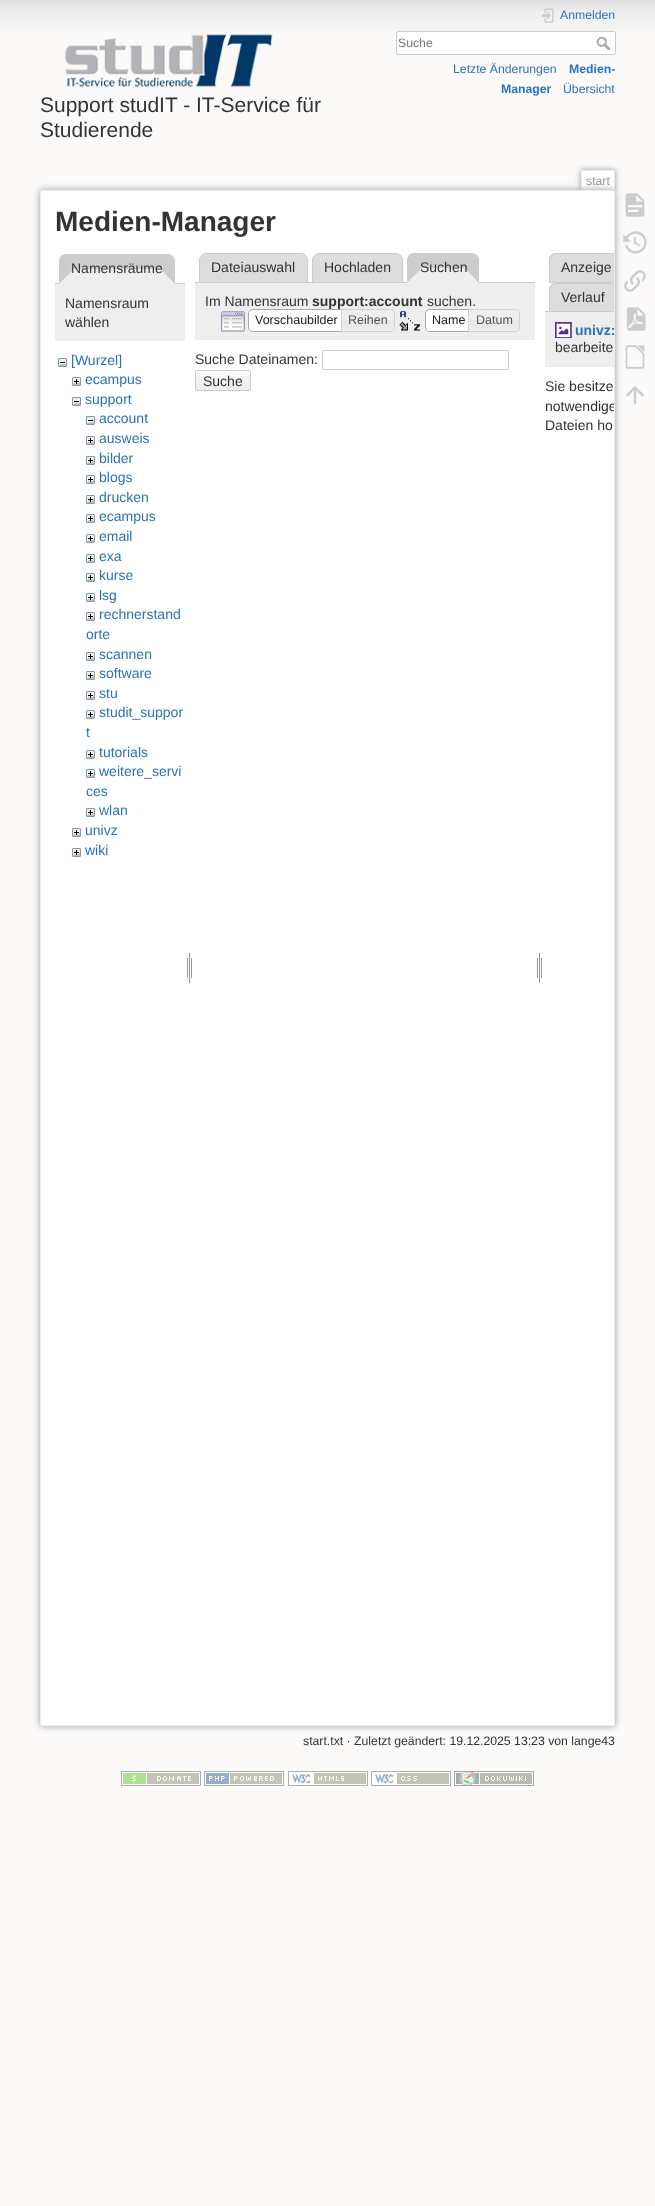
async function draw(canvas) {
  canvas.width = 655;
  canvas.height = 2206;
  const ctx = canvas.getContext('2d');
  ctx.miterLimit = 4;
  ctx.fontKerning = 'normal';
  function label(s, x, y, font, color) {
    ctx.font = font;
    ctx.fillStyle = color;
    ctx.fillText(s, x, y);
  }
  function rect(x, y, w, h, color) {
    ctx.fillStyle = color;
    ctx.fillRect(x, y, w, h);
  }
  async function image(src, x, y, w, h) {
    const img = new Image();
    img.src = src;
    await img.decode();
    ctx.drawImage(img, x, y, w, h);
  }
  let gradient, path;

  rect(0, 0, 655, 2206, '#fbfaf9');
  await image('assets/img1.png', 0, 0, 655, 31);
  await image('assets/img2.png', 542, 8, 12, 15);
  label('Anmelden', 560, 19, '12.25px Liberation Sans', '#2b73b7');
  ctx.fillStyle = '#fff';
  ctx.beginPath();
  ctx.roundRect(396.5, 31.5, 219, 23, 1.5);
  ctx.fill();
  ctx.strokeStyle = '#ccc';
  ctx.stroke();
  label('Suche', 398, 47, '12.25px Liberation Sans', '#757575');
  await image('assets/img3.png', 596, 36, 14, 14);
  label('Letzte Änderungen', 453, 73, '12.25px Liberation Sans', '#2b73b7');
  label('Medien-', 569, 73, 'bold 12.25px Liberation Sans', '#2b73b7');
  label('Manager', 501, 93, 'bold 12.25px Liberation Sans', '#2b73b7');
  label('Übersicht', 563, 93, '12.25px Liberation Sans', '#2b73b7');
  await image('assets/img4.png', 64, 34, 209, 54);
  label('Support studIT - IT-Service für', 40, 112, '21px Liberation Sans', '#333');
  label('Studierende', 40, 137, '21px Liberation Sans', '#333');
  ctx.save();
  ctx.beginPath();
  ctx.rect(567, 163, 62, 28);
  ctx.clip();
  ctx.fillStyle = '#999';
  ctx.filter = 'blur(3px)';
  ctx.beginPath();
  ctx.roundRect(581, 170, 34, 21, 2);
  ctx.fill();
  ctx.filter = 'none';
  ctx.restore();
  ctx.fillStyle = '#fff';
  ctx.beginPath();
  ctx.roundRect(582, 171, 32, 20, [1, 1, 0, 0]);
  ctx.fill();
  rect(582, 170, 32, 1, '#eee');
  rect(614, 171, 1, 20, '#eee');
  rect(581, 171, 1, 20, '#eee');
  label('start', 586, 185, '12.25px Liberation Sans', '#999');
  ctx.filter = 'blur(3.5px)';
  ctx.beginPath();
  ctx.roundRect(40, 190, 575, 1536, 2);
  ctx.fill();
  ctx.filter = 'none';
  ctx.fillStyle = '#fff';
  ctx.beginPath();
  ctx.roundRect(40.5, 190.5, 574, 1535, 1.5);
  ctx.fill();
  ctx.strokeStyle = '#eee';
  ctx.stroke();
  label('Medien-Manager', 55, 231, 'bold 28px Liberation Sans', '#333');
  rect(55, 283, 130, 1, '#ccc');
  ctx.fillStyle = '#eee';
  ctx.beginPath();
  ctx.roundRect(59, 254, 116, 30, [7, 7, 0, 0]);
  ctx.fill();
  ctx.fillStyle = '#ccc';
  path = new Path2D('M66 254H169L173 256L160 269H74L61 256C62 255 64 254 66 254Z');
  ctx.fill(path);
  path = new Path2D('M173 256L160 269L175 284V261C175 259 174 257 173 256Z');
  ctx.fill(path);
  ctx.fillStyle = '#eee';
  path = new Path2D('M175 284L160 269H74L59 284Z');
  ctx.fill(path);
  ctx.fillStyle = '#ccc';
  path = new Path2D('M59 284V261C59 259 60 257 61 256L74 269Z');
  ctx.fill(path);
  label('Namensräume', 71, 273, '14px Liberation Sans', '#333');
  rect(55, 284, 130, 57, '#eee');
  label('Namensraum', 65, 308, '14px Liberation Sans', '#333');
  label('wählen', 65, 327, '14px Liberation Sans', '#333');
  await image('assets/img5.png', 58, 358, 9, 9);
  label('[Wurzel]', 71, 365, '14px Liberation Sans', '#2b73b7');
  await image('assets/img6.png', 72, 377, 9, 9);
  label('ecampus', 85, 384, '14px Liberation Sans', '#2b73b7');
  await image('assets/img5.png', 72, 397, 9, 9);
  label('support', 85, 404, '14px Liberation Sans', '#2b73b7');
  await image('assets/img5.png', 86, 416, 9, 9);
  label('account', 99, 423, '14px Liberation Sans', '#2b73b7');
  await image('assets/img6.png', 86, 436, 9, 9);
  label('ausweis', 99, 443, '14px Liberation Sans', '#2b73b7');
  await image('assets/img6.png', 86, 456, 9, 9);
  label('bilder', 99, 463, '14px Liberation Sans', '#2b73b7');
  await image('assets/img6.png', 86, 475, 9, 9);
  label('blogs', 99, 482, '14px Liberation Sans', '#2b73b7');
  await image('assets/img6.png', 86, 495, 9, 9);
  label('drucken', 99, 502, '14px Liberation Sans', '#2b73b7');
  await image('assets/img6.png', 86, 514, 9, 9);
  label('ecampus', 99, 521, '14px Liberation Sans', '#2b73b7');
  await image('assets/img6.png', 86, 534, 9, 9);
  label('email', 99, 541, '14px Liberation Sans', '#2b73b7');
  await image('assets/img6.png', 86, 554, 9, 9);
  label('exa', 99, 561, '14px Liberation Sans', '#2b73b7');
  await image('assets/img6.png', 86, 573, 9, 9);
  label('kurse', 99, 580, '14px Liberation Sans', '#2b73b7');
  await image('assets/img6.png', 86, 593, 9, 9);
  label('lsg', 99, 600, '14px Liberation Sans', '#2b73b7');
  await image('assets/img6.png', 86, 612, 9, 9);
  label('rechnerstand', 99, 619, '14px Liberation Sans', '#2b73b7');
  label('orte', 86, 639, '14px Liberation Sans', '#2b73b7');
  await image('assets/img6.png', 86, 652, 9, 9);
  label('scannen', 99, 659, '14px Liberation Sans', '#2b73b7');
  await image('assets/img6.png', 86, 671, 9, 9);
  label('software', 99, 678, '14px Liberation Sans', '#2b73b7');
  await image('assets/img6.png', 86, 691, 9, 9);
  label('stu', 99, 698, '14px Liberation Sans', '#2b73b7');
  await image('assets/img6.png', 86, 710, 9, 9);
  label('studit_suppor', 99, 717, '14px Liberation Sans', '#2b73b7');
  label('t', 86, 737, '14px Liberation Sans', '#2b73b7');
  await image('assets/img6.png', 86, 750, 9, 9);
  label('tutorials', 99, 757, '14px Liberation Sans', '#2b73b7');
  await image('assets/img6.png', 86, 769, 9, 9);
  label('weitere_servi', 99, 776, '14px Liberation Sans', '#2b73b7');
  label('ces', 86, 796, '14px Liberation Sans', '#2b73b7');
  await image('assets/img6.png', 86, 808, 9, 9);
  label('wlan', 99, 815, '14px Liberation Sans', '#2b73b7');
  await image('assets/img6.png', 72, 828, 9, 9);
  label('univz', 85, 835, '14px Liberation Sans', '#2b73b7');
  await image('assets/img6.png', 72, 848, 9, 9);
  label('wiki', 85, 855, '14px Liberation Sans', '#2b73b7');
  await image('assets/img7.png', 187, 952, 5, 31);
  ctx.fillStyle = '#ddd';
  ctx.beginPath();
  ctx.roundRect(199.5, 253.5, 108, 29, [6.5, 6.5, 0, 0]);
  ctx.fill();
  ctx.strokeStyle = '#ccc';
  ctx.stroke();
  label('Dateiauswahl', 211, 272, '14px Liberation Sans', '#333');
  ctx.fillStyle = '#ddd';
  ctx.beginPath();
  ctx.roundRect(312.5, 253.5, 90, 29, [6.5, 6.5, 0, 0]);
  ctx.fill();
  ctx.stroke();
  label('Hochladen', 324, 272, '14px Liberation Sans', '#333');
  ctx.fillStyle = '#ccc';
  path = new Path2D('M414 253H472C474 253 476 254 477 255L464 268H422L409 255C410 254 412 253 414 253Z');
  ctx.fill(path);
  rect(195, 282, 340, 1, '#ccc');
  path = new Path2D('M477 255L464 268L479 283V260C479 258 478 256 477 255Z');
  ctx.fill(path);
  ctx.fillStyle = '#eee';
  path = new Path2D('M479 283L464 268H422L407 283Z');
  ctx.fill(path);
  ctx.fillStyle = '#ccc';
  path = new Path2D('M407 283V260C407 258 408 256 409 255L422 268Z');
  ctx.fill(path);
  label('Suchen', 420, 272, '14px Liberation Sans', '#333');
  rect(195, 283, 340, 57, '#eee');
  label('Im Namensraum', 205, 306, '14px Liberation Sans', '#333');
  label('support:account', 312, 306, 'bold 14px Liberation Sans', '#333');
  label('suchen.', 427, 306, '14px Liberation Sans', '#333');
  await image('assets/img8.png', 221, 311, 24, 21);
  rect(248, 309, 93, 23, '#fff');
  ctx.beginPath();
  ctx.roundRect(248.5, 309.5, 97, 22, [3.5, 0, 0, 3.5]);
  ctx.strokeStyle = '#aaa';
  ctx.stroke();
  label('Vorschaubilder', 255, 324, '12.5px Liberation Sans', '#212121');
  await image('assets/img9.png', 342, 309, 53, 23);
  ctx.beginPath();
  ctx.roundRect(341.5, 309.5, 53, 22, [0, 3.5, 3.5, 0]);
  ctx.strokeStyle = '#d3d3d3';
  ctx.stroke();
  label('Reihen', 348, 324, '12.5px Liberation Sans', '#555');
  await image('assets/img10.png', 399, 311, 21, 20);
  rect(425, 309, 43, 23, '#fff');
  ctx.beginPath();
  ctx.roundRect(425.5, 309.5, 47, 22, [3.5, 0, 0, 3.5]);
  ctx.strokeStyle = '#aaa';
  ctx.stroke();
  label('Name', 432, 324, '12.5px Liberation Sans', '#212121');
  await image('assets/img11.png', 469, 309, 51, 23);
  ctx.beginPath();
  ctx.roundRect(468.5, 309.5, 51, 22, [0, 3.5, 3.5, 0]);
  ctx.strokeStyle = '#d3d3d3';
  ctx.stroke();
  label('Datum', 476, 324, '12.5px Liberation Sans', '#555');
  label('Suche Dateinamen:', 195, 364, '14px Liberation Sans', '#333');
  ctx.beginPath();
  ctx.roundRect(322.5, 350.5, 186, 19, 1.5);
  ctx.strokeStyle = '#ccc';
  ctx.stroke();
  ctx.save();
  ctx.beginPath();
  ctx.roundRect(195, 370, 56, 21, 2);
  ctx.clip();
  gradient = ctx.createLinearGradient(223, 371, 223, 390);
  gradient.addColorStop(0, '#fff');
  gradient.addColorStop(0.3, '#f4f4f4');
  gradient.addColorStop(0.99, '#eee');
  gradient.addColorStop(0.99, '#ccc');
  ctx.fillStyle = gradient;
  ctx.fillRect(195, 371, 56, 19);
  ctx.restore();
  ctx.beginPath();
  ctx.roundRect(195.5, 370.5, 55, 20, 1.5);
  ctx.stroke();
  label('Suche', 203, 386, '14px Liberation Sans', '#333');
  await image('assets/img7.png', 537, 952, 5, 31);
  ctx.fillStyle = '#ddd';
  ctx.beginPath();
  ctx.roundRect(549, 253, 65, 30, [7, 0, 0, 0]);
  ctx.fill();
  ctx.fillStyle = '#ccc';
  path = new Path2D('M556 253C552 253 549 256 549 260V283H614V282H550V260C550 257 553 254 556 254H614V253Z');
  ctx.fill(path);
  label('Anzeige', 561, 272, '14px Liberation Sans', '#333');
  ctx.save();
  ctx.beginPath();
  ctx.roundRect(41, 191, 573, 1534, 1);
  ctx.clip();
  ctx.fillStyle = '#ddd';
  ctx.beginPath();
  ctx.roundRect(549, 283, 68, 29, [7, 7, 0, 0]);
  ctx.fill();
  ctx.restore();
  ctx.fillStyle = '#ccc';
  path = new Path2D('M556 283C552 283 549 286 549 290V312H614V311H550V290C550 287 553 284 556 284H610C612 284 613 285 614 286V284L610 283Z');
  ctx.fill(path);
  label('Verlauf', 561, 302, '14px Liberation Sans', '#333');
  rect(545, 311, 4, 1, '#ccc');
  rect(545, 312, 69, 55, '#eee');
  await image('assets/img12.png', 555, 322, 17, 16);
  label('univz:', 575, 335, 'bold 14px Liberation Sans', '#2b73b7');
  label('bearbeite', 555, 352, '14px Liberation Sans', '#333');
  label('Sie besitze', 545, 391, '14px Liberation Sans', '#333');
  ctx.save();
  ctx.beginPath();
  ctx.roundRect(41, 191, 573, 1534, 1);
  ctx.clip();
  label('notwendige', 545, 411, '14px Liberation Sans', '#333');
  ctx.restore();
  label('Dateien ho', 545, 430, '14px Liberation Sans', '#333');
  label('start.txt · Zuletzt geändert: 19.12.2025 13:23 von lange43', 303, 1745, '12.25px Liberation Sans', '#333');
  await image('assets/img13.png', 625, 193, 20, 24);
  await image('assets/img14.png', 623, 231, 24, 23);
  await image('assets/img15.png', 624, 270, 22, 22);
  await image('assets/img16.png', 626, 307, 20, 24);
  await image('assets/img17.png', 625, 345, 20, 24);
  await image('assets/img18.png', 626, 386, 18, 19);
  await image('assets/img19.png', 121, 1771, 80, 15);
  await image('assets/img20.png', 204, 1771, 80, 15);
  await image('assets/img21.png', 288, 1771, 80, 15);
  await image('assets/img22.png', 371, 1771, 80, 15);
  await image('assets/img23.png', 454, 1771, 80, 15);
}

draw(document.querySelector('canvas'));
